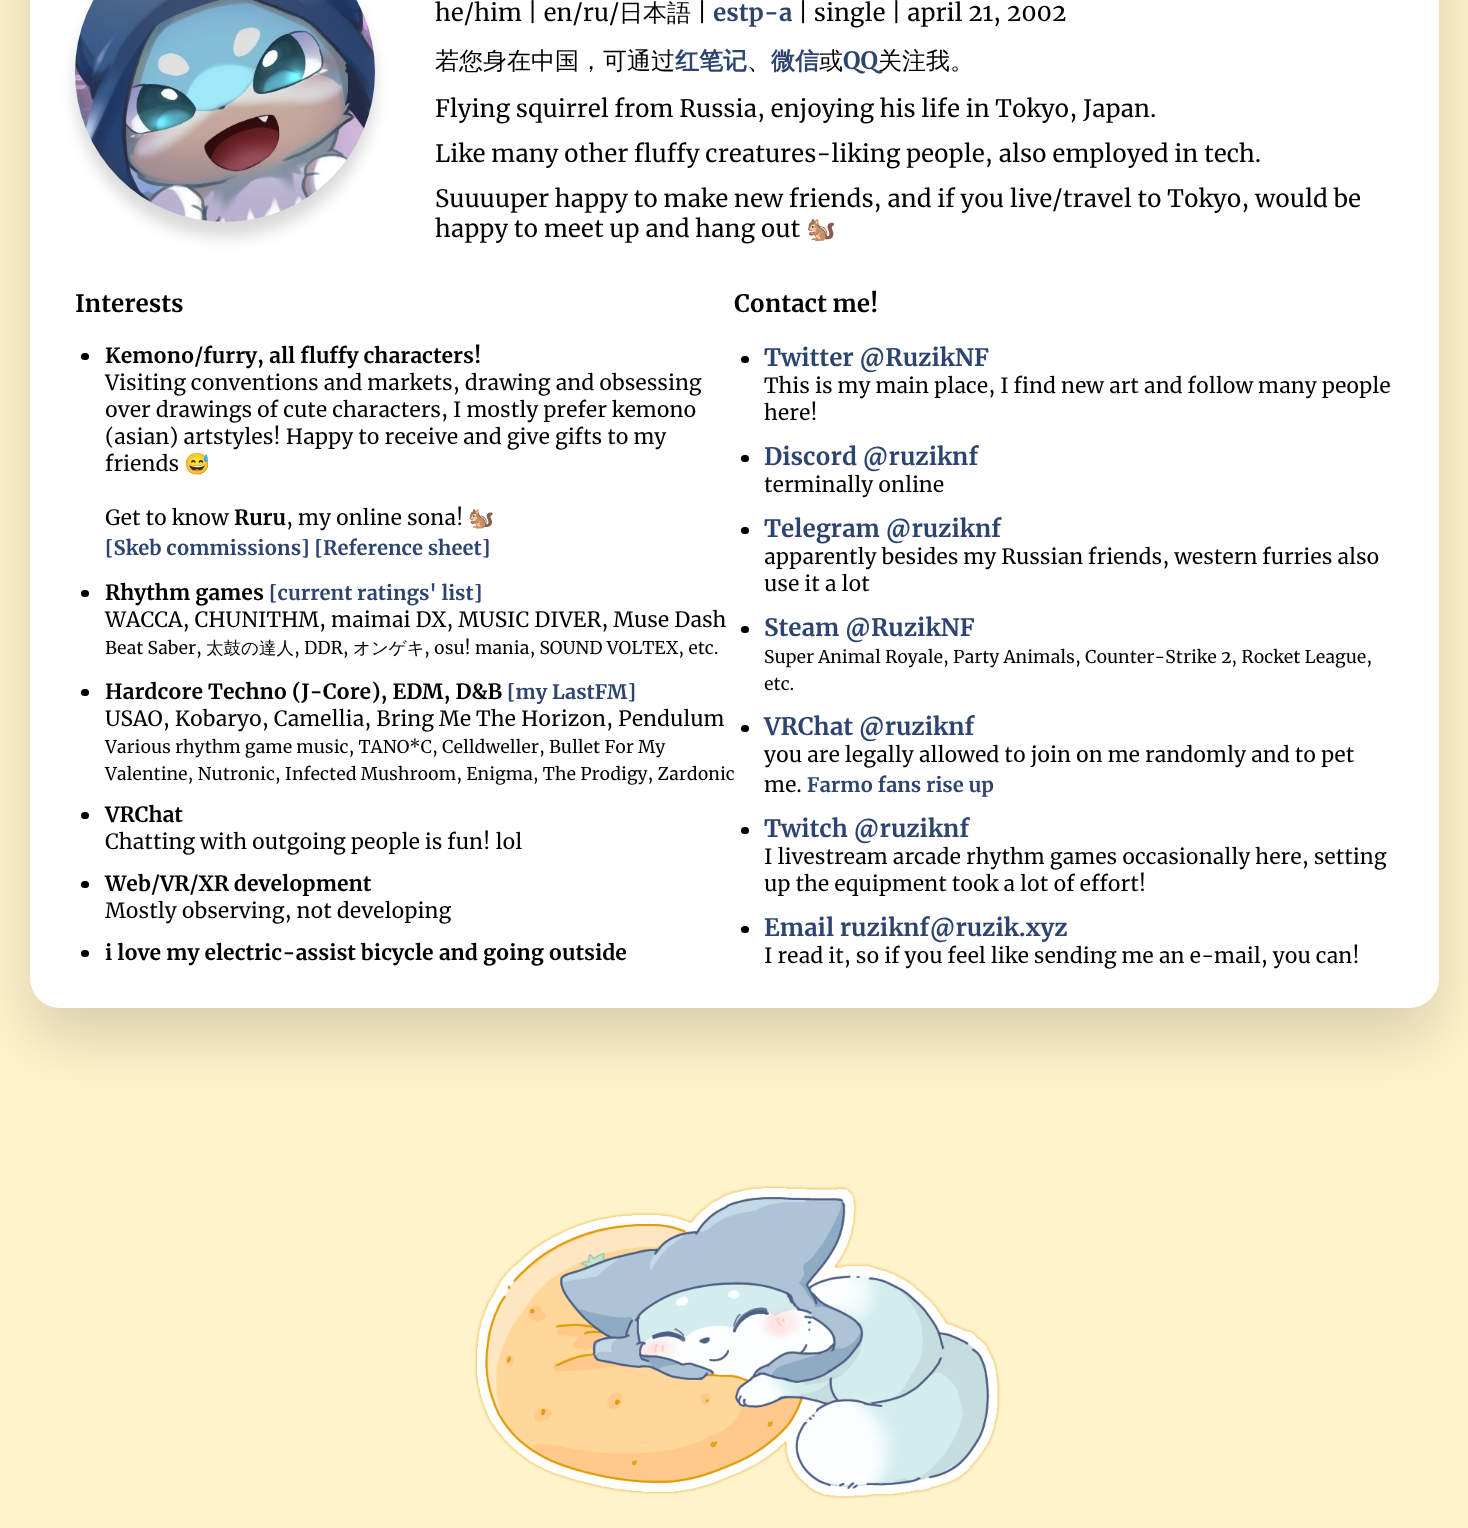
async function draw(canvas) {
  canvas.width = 1468;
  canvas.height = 1528;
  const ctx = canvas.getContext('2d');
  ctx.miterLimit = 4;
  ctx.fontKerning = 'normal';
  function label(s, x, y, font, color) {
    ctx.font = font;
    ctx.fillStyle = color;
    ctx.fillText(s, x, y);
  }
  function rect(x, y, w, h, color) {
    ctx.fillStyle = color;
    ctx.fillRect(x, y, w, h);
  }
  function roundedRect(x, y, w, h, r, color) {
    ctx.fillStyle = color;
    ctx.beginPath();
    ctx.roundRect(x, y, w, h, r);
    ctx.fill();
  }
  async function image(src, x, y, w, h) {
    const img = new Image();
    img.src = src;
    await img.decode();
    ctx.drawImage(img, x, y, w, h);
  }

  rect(0, 0, 1468, 1528, '#fff3cb');
  ctx.fillStyle = '#00000026';
  ctx.filter = 'blur(30px)';
  ctx.beginPath();
  ctx.roundRect(30, -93, 1409, 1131, 30);
  ctx.fill();
  ctx.filter = 'none';
  roundedRect(30, -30, 1409, 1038, 30, '#fff');
  ctx.fillStyle = '#00000026';
  ctx.filter = 'blur(7.5px)';
  ctx.beginPath();
  ctx.roundRect(75, -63, 300, 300, 150);
  ctx.fill();
  ctx.filter = 'none';
  await image('assets/img1.png', 75, 0, 300, 222);
  label('he/him | en/ru/', 435, 21, '24px Merriweather', '#000');
  label('日本語', 619, 21, '500 24px WenQuanYi Zen Hei', '#000');
  label('|', 697, 21, '24px Merriweather', '#000');
  label('estp-a', 713, 21, 'bold 24px Merriweather', '#2d4470');
  label('| single | april 21, 2002', 798, 21, '24px Merriweather', '#000');
  label('若您身在中国，可通过', 435, 69, '500 24px WenQuanYi Zen Hei', '#000');
  label('红笔记', 675, 69, 'bold 24px WenQuanYi Zen Hei', '#2d4470');
  label('、', 747, 69, '500 24px WenQuanYi Zen Hei', '#000');
  label('微信', 771, 69, 'bold 24px WenQuanYi Zen Hei', '#2d4470');
  label('或', 819, 69, '500 24px WenQuanYi Zen Hei', '#000');
  label('关注我。', 878, 69, '500 24px WenQuanYi Zen Hei', '#000');
  label('QQ', 843, 69, 'bold 24px Merriweather', '#2d4470');
  label('Flying squirrel from Russia, enjoying his life in Tokyo, Japan.', 435, 117, '24px Merriweather', '#000');
  label('Like many other fluffy creatures-liking people, also employed in tech.', 435, 162, '24px Merriweather', '#000');
  label('Suuuuper happy to make new friends, and if you live/travel to Tokyo, would be', 435, 207, '24px Merriweather', '#000');
  label('happy to meet up and hang out', 435, 237, '24px Merriweather', '#000');
  label('🐿️', 806, 237, '24px Noto Color Emoji', '#000');
  label('Interests', 75, 312, 'bold 24px Merriweather', '#000');
  roundedRect(81, 353, 8, 7, 3.5, '#000');
  label('Kemono/furry, all fluffy characters!', 105, 363, 'bold 21px Merriweather', '#000');
  label('Visiting conventions and markets, drawing and obsessing', 105, 390, '21px Merriweather', '#000');
  label('over drawings of cute characters, I mostly prefer kemono', 105, 417, '21px Merriweather', '#000');
  label('(asian) artstyles! Happy to receive and give gifts to my', 105, 444, '21px Merriweather', '#000');
  label('friends', 105, 471, '21px Merriweather', '#000');
  label('😅', 184, 471, '21px Noto Color Emoji', '#000');
  label('Get to know', 105, 525, '21px Merriweather', '#000');
  label('Ruru', 234, 525, 'bold 21px Merriweather', '#000');
  label(', my online sona!', 286, 525, '21px Merriweather', '#000');
  label('🐿️', 468, 525, '21px Noto Color Emoji', '#000');
  label('[Skeb commissions] [Reference sheet]', 105, 555, 'bold 20px Merriweather', '#2d4470');
  roundedRect(81, 590, 8, 7, 3.5, '#000');
  label('Rhythm games', 105, 600, 'bold 21px Merriweather', '#000');
  label('[current ratings\' list]', 269, 600, 'bold 20px Merriweather', '#2d4470');
  label('WACCA, CHUNITHM, maimai DX, MUSIC DIVER, Muse Dash', 105, 627, '21px Merriweather', '#000');
  label('Beat Saber,', 105, 654, '17.5px Merriweather', '#000');
  label('太鼓の達人', 206, 654, '500 17.5px WenQuanYi Zen Hei', '#000');
  label(', DDR,', 294, 654, '17.5px Merriweather', '#000');
  label('オンゲキ', 353, 654, '500 17.5px WenQuanYi Zen Hei', '#000');
  label(', osu! mania, SOUND VOLTEX, etc.', 424, 654, '17.5px Merriweather', '#000');
  roundedRect(81, 689, 8, 7, 3.5, '#000');
  label('Hardcore Techno (J-Core), EDM, D&B', 105, 699, 'bold 21px Merriweather', '#000');
  label('[my LastFM]', 507, 699, 'bold 20px Merriweather', '#2d4470');
  label('USAO, Kobaryo, Camellia, Bring Me The Horizon, Pendulum', 105, 726, '21px Merriweather', '#000');
  label('Various rhythm game music, TANO*C, Celldweller, Bullet For My', 105, 753, '17.5px Merriweather', '#000');
  label('Valentine, Nutronic, Infected Mushroom, Enigma, The Prodigy, Zardonic', 105, 780, '17.5px Merriweather', '#000');
  roundedRect(81, 812, 8, 7, 3.5, '#000');
  label('VRChat', 105, 822, 'bold 21px Merriweather', '#000');
  label('Chatting with outgoing people is fun! lol', 105, 849, '21px Merriweather', '#000');
  roundedRect(81, 881, 8, 7, 3.5, '#000');
  label('Web/VR/XR development', 105, 891, 'bold 21px Merriweather', '#000');
  label('Mostly observing, not developing', 105, 918, '21px Merriweather', '#000');
  roundedRect(81, 950, 8, 7, 3.5, '#000');
  label('i love my electric-assist bicycle and going outside', 105, 960, 'bold 21px Merriweather', '#000');
  label('Contact me!', 734, 312, 'bold 24px Merriweather', '#000');
  roundedRect(741, 356, 8, 7, 3.5, '#000');
  label('Twitter @RuzikNF', 764, 366, 'bold 24px Merriweather', '#2d4470');
  label('This is my main place, I find new art and follow many people', 764, 393, '21px Merriweather', '#000');
  label('here!', 764, 420, '21px Merriweather', '#000');
  roundedRect(741, 455, 8, 7, 3.5, '#000');
  label('Discord @ruziknf', 764, 465, 'bold 24px Merriweather', '#2d4470');
  label('terminally online', 764, 492, '21px Merriweather', '#000');
  roundedRect(741, 527, 8, 7, 3.5, '#000');
  label('Telegram @ruziknf', 764, 537, 'bold 24px Merriweather', '#2d4470');
  label('apparently besides my Russian friends, western furries also', 764, 564, '21px Merriweather', '#000');
  label('use it a lot', 764, 591, '21px Merriweather', '#000');
  roundedRect(741, 626, 8, 7, 3.5, '#000');
  label('Steam @RuzikNF', 764, 636, 'bold 24px Merriweather', '#2d4470');
  label('Super Animal Royale, Party Animals, Counter-Strike 2, Rocket League,', 764, 663, '17.5px Merriweather', '#000');
  label('etc.', 764, 690, '17.5px Merriweather', '#000');
  roundedRect(741, 725, 8, 7, 3.5, '#000');
  label('VRChat @ruziknf', 764, 735, 'bold 24px Merriweather', '#2d4470');
  label('you are legally allowed to join on me randomly and to pet', 764, 762, '21px Merriweather', '#000');
  label('me.', 764, 792, '21px Merriweather', '#000');
  label('Farmo fans rise up', 807, 792, 'bold 20px Merriweather', '#2d4470');
  roundedRect(741, 827, 8, 7, 3.5, '#000');
  label('Twitch @ruziknf', 764, 837, 'bold 24px Merriweather', '#2d4470');
  label('I livestream arcade rhythm games occasionally here, setting', 764, 864, '21px Merriweather', '#000');
  label('up the equipment took a lot of effort!', 764, 891, '21px Merriweather', '#000');
  roundedRect(741, 926, 8, 7, 3.5, '#000');
  label('Email ruziknf@ruzik.xyz', 764, 936, 'bold 24px Merriweather', '#2d4470');
  label('I read it, so if you feel like sending me an e-mail, you can!', 764, 963, '21px Merriweather', '#000');
  await image('assets/img2.png', 474, 1185, 527, 314);
}

draw(document.querySelector('canvas'));
